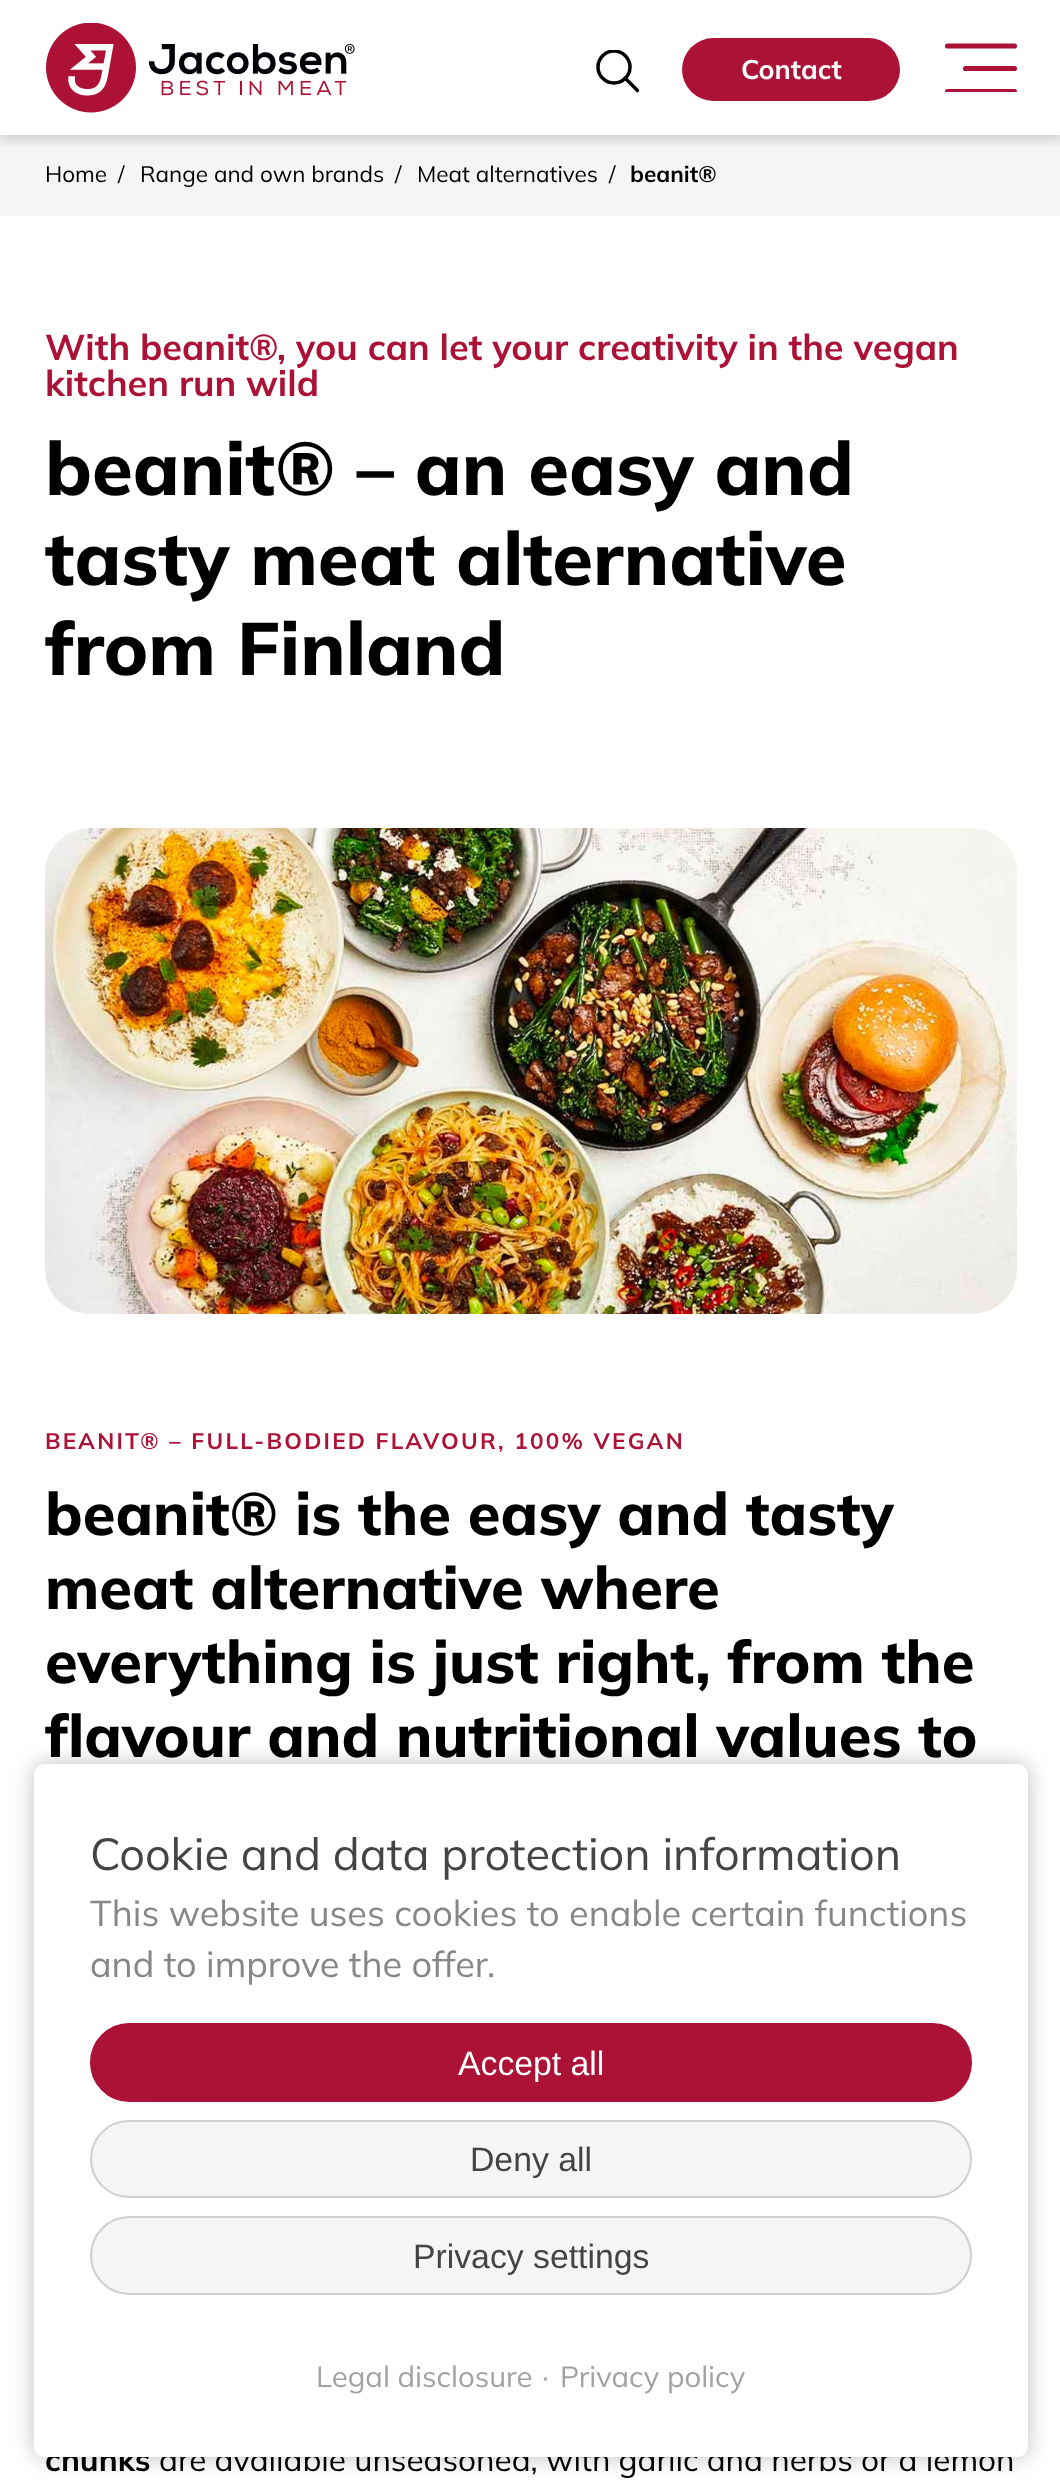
async function draw(canvas) {
  canvas.width = 1060;
  canvas.height = 2489;
  const ctx = canvas.getContext('2d');
  ctx.miterLimit = 4;
  ctx.fontKerning = 'normal';
  function label(s, x, y, font, color) {
    ctx.font = font;
    ctx.fillStyle = color;
    ctx.fillText(s, x, y);
  }
  function rect(x, y, w, h, color) {
    ctx.fillStyle = color;
    ctx.fillRect(x, y, w, h);
  }
  function roundedRect(x, y, w, h, r, color) {
    ctx.fillStyle = color;
    ctx.beginPath();
    ctx.roundRect(x, y, w, h, r);
    ctx.fill();
  }
  async function image(src, x, y, w, h) {
    const img = new Image();
    img.src = src;
    await img.decode();
    ctx.drawImage(img, x, y, w, h);
  }
  let path;

  rect(0, 0, 1060, 2489, '#fff');
  rect(0, 135, 1060, 81, '#f5f5f7');
  ctx.save();
  ctx.beginPath();
  ctx.rect(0, 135, 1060, 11);
  ctx.clip();
  ctx.fillStyle = '#00000026';
  ctx.filter = 'blur(5.5px)';
  ctx.beginPath();
  ctx.rect(0, 5, 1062, 135);
  ctx.fill();
  ctx.filter = 'none';
  ctx.restore();
  await image('assets/img1.png', 46, 23, 309, 90);
  ctx.save();
  ctx.beginPath();
  ctx.rect(596, 50, 43, 42);
  ctx.clip();
  ctx.beginPath();
  ctx.arc(614, 67, 16, 0, 2 * Math.PI);
  ctx.strokeStyle = '#000';
  ctx.lineWidth = 3.5;
  ctx.stroke();
  ctx.restore();
  path = new Path2D('M625 78L637.5 90.5');
  ctx.strokeStyle = '#000';
  ctx.lineWidth = 3.5;
  ctx.lineCap = 'round';
  ctx.lineJoin = 'round';
  ctx.stroke(path);
  roundedRect(682, 38, 218, 63, 31.5, '#ac1136');
  label('Contact', 741, 79, '200 27px "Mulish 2"', '#fff');
  path = new Path2D('M947.5 46H1014.5');
  ctx.strokeStyle = '#ac1136';
  ctx.lineWidth = 5.1;
  ctx.lineJoin = 'miter';
  ctx.stroke(path);
  path = new Path2D('M965.5 68.5H1014.5');
  ctx.stroke(path);
  ctx.save();
  ctx.beginPath();
  ctx.rect(945, 43, 72, 49);
  ctx.clip();
  path = new Path2D('M947.5 91.5H1014.5');
  ctx.stroke(path);
  ctx.restore();
  label('Home', 45, 182, '200 22.5px Mulish', '#000');
  label('/', 118, 182, '200 22.5px Mulish', '#000');
  label('Range and own brands', 140, 182, '200 22.5px Mulish', '#000');
  label('/', 395, 182, '200 22.5px Mulish', '#000');
  label('Meat alternatives', 417, 182, '200 22.5px Mulish', '#000');
  label('/', 609, 182, '200 22.5px Mulish', '#000');
  label('beanit®', 630, 182, '200 22.5px "Mulish 2"', '#000');
  label('With beanit®, you can let your creativity in the vegan', 45, 360, '200 36px "Mulish 2"', '#ac1136');
  label('kitchen run wild', 45, 396, '200 36px "Mulish 2"', '#ac1136');
  label('beanit® – an easy and', 45, 495, '200 74.25px "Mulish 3"', '#000');
  label('tasty meat alternative', 45, 585, '200 74.25px "Mulish 3"', '#000');
  label('from Finland', 45, 675, '200 74.25px "Mulish 3"', '#000');
  await image('assets/img2.png', 45, 828, 972, 486);
  ctx.letterSpacing = '2.25px';
  label('BEANIT® – FULL-BODIED FLAVOUR, 100% VEGAN', 45, 1449, '200 22.5px "Mulish 2"', '#ac1136');
  ctx.letterSpacing = '0px';
  label('beanit® is the easy and tasty', 45, 1535, '200 59.6px "Mulish 3"', '#000');
  label('meat alternative where', 45, 1609, '200 59.6px "Mulish 3"', '#000');
  label('everything is just right, from the', 45, 1683, '200 59.6px "Mulish 3"', '#000');
  label('flavour and nutritional values to', 45, 1757, '200 59.6px "Mulish 3"', '#000');
  label('chunks', 45, 2471, '200 31.5px "Mulish 2"', '#000');
  label('are available unseasoned, with garlic and herbs or a lemon', 159, 2471, '200 31.5px Mulish', '#000');
  ctx.fillStyle = '#00000040';
  ctx.filter = 'blur(11px)';
  ctx.beginPath();
  ctx.roundRect(34, 1764, 994, 693, 11);
  ctx.fill();
  ctx.filter = 'none';
  roundedRect(34, 1764, 994, 693, 11, '#fff');
  label('Cookie and data protection information', 90, 1870, '200 45px Mulish', '#444');
  label('This website uses cookies to enable certain functions', 90, 1926, '200 36px Mulish', '#868686');
  label('and to improve the offer.', 90, 1977, '200 36px Mulish', '#868686');
  ctx.fillStyle = '#ac1136';
  ctx.beginPath();
  ctx.roundRect(91, 2024, 880, 77, 38.5);
  ctx.fill();
  ctx.lineWidth = 2;
  ctx.stroke();
  label('Accept all', 458, 2075, '33.75px Liberation Sans', '#fff');
  ctx.fillStyle = '#f5f5f5';
  ctx.beginPath();
  ctx.roundRect(91, 2121, 880, 76, 38);
  ctx.fill();
  ctx.strokeStyle = '#cfcfcf';
  ctx.stroke();
  label('Deny all', 470, 2171, '33.75px Liberation Sans', '#444');
  ctx.fillStyle = '#f5f5f5';
  ctx.beginPath();
  ctx.roundRect(91, 2217, 880, 77, 38.5);
  ctx.fill();
  ctx.stroke();
  label('Privacy settings', 413, 2268, '33.75px Liberation Sans', '#444');
  label('Legal disclosure', 316, 2387, '200 29.25px Mulish', '#a2a2a2');
  label('·', 542, 2387, '200 29.25px Mulish', '#a2a2a2');
  label('Privacy policy', 560, 2387, '200 29.25px Mulish', '#a2a2a2');
}

draw(document.querySelector('canvas'));
